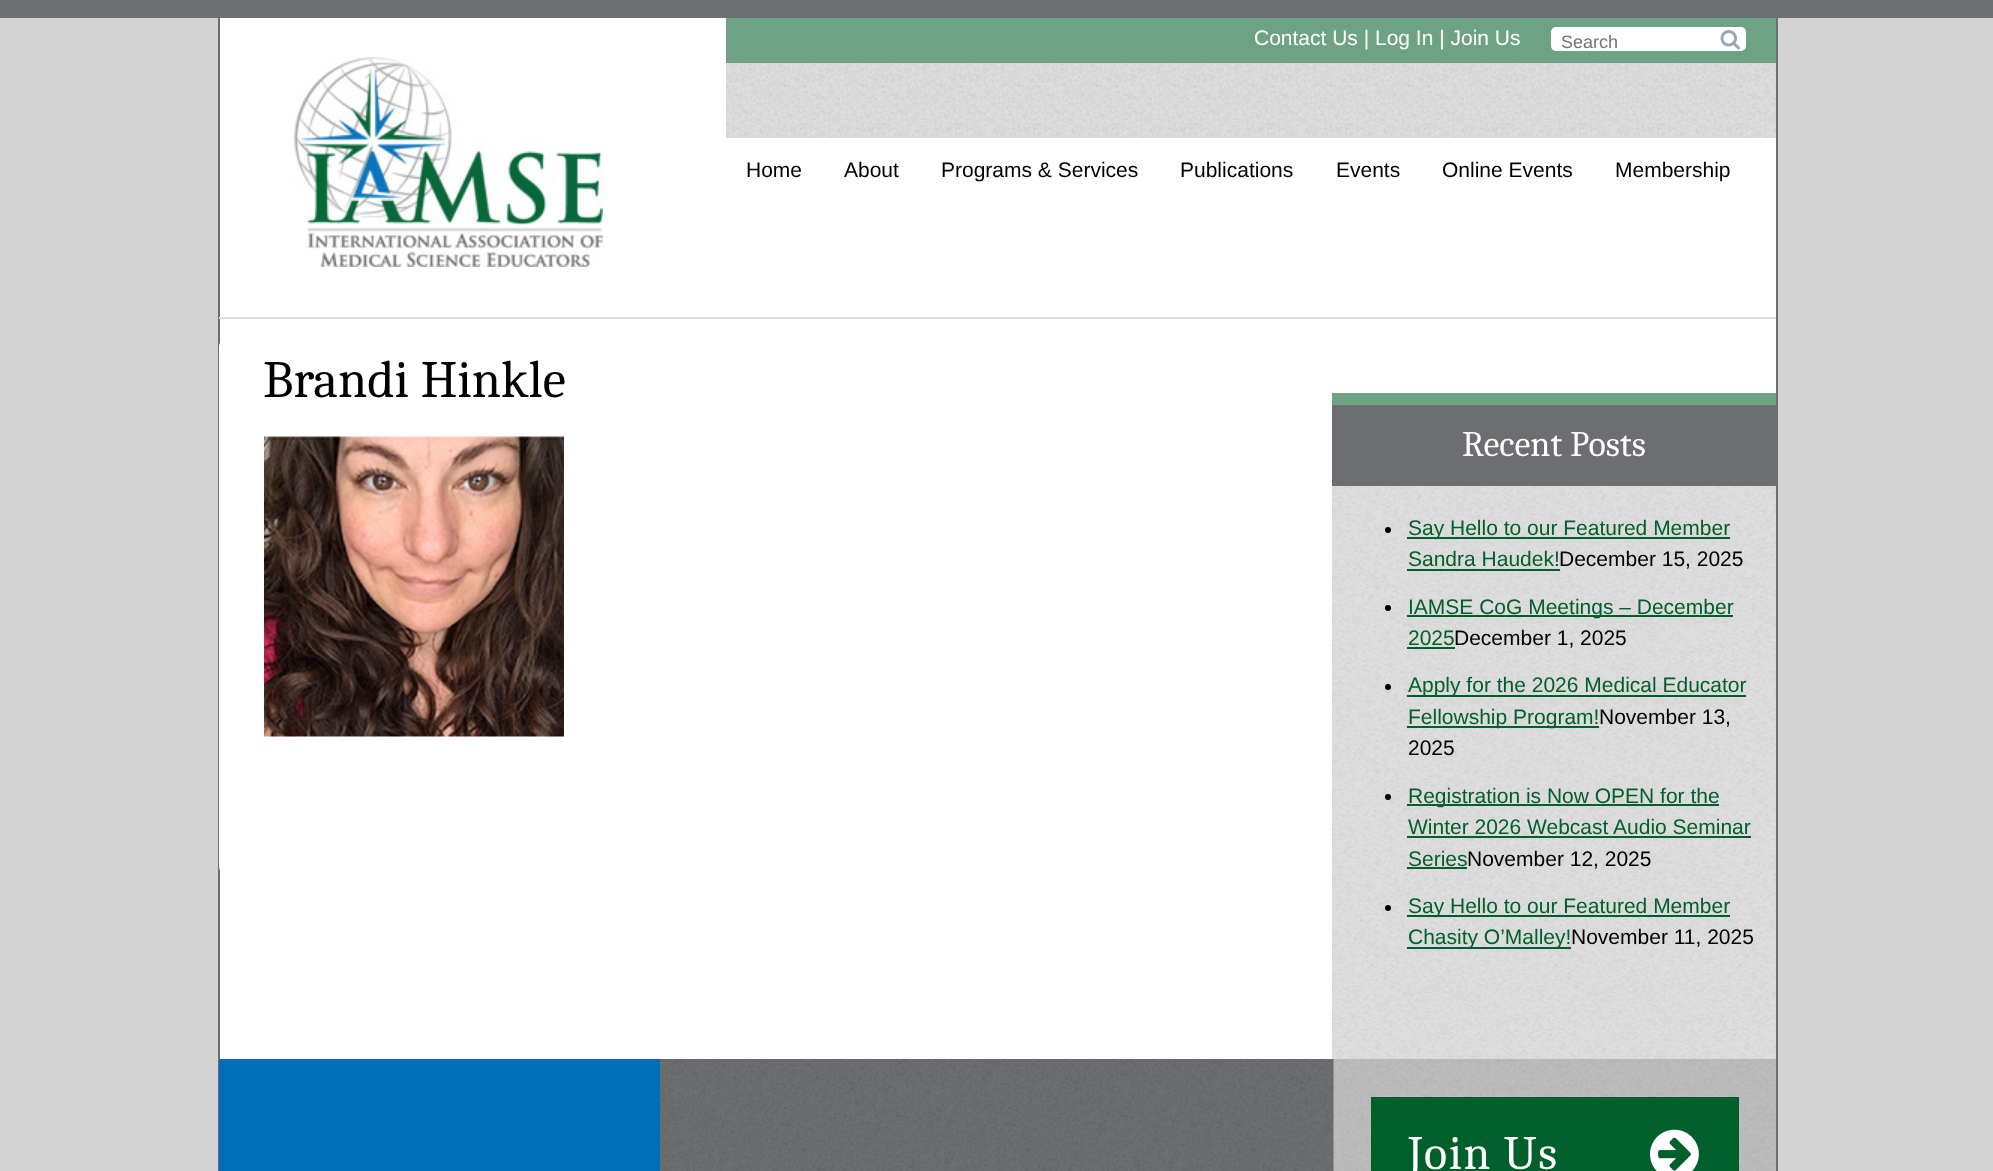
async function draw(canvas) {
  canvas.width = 1993;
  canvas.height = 1171;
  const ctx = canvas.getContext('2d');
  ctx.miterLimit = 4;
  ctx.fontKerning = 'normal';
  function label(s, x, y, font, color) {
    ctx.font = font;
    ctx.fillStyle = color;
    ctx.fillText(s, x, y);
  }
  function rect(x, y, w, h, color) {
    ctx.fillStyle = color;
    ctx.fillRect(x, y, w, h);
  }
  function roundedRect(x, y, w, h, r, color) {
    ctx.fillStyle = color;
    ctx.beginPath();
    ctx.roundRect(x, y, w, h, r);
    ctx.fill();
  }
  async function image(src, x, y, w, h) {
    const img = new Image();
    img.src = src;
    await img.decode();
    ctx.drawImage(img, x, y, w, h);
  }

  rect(0, 0, 1993, 1171, '#d2d2d2');
  rect(0, 0, 1993, 18, '#6d6e71');
  rect(220, 18, 1556, 1041, '#fff');
  rect(1776, 18, 2, 1153, '#6d6e71');
  rect(218, 18, 2, 1153, '#6d6e71');
  rect(219, 317, 1557, 2, '#dedede');
  await image('assets/img1.png', 294, 57, 309, 210);
  rect(726, 18, 1050, 45, '#6da285');
  label('Contact Us | Log In | Join Us', 1254, 45, '21px Liberation Sans', '#fff');
  roundedRect(1551, 27, 195, 24, 5, '#fff');
  label('Search', 1561, 48, '18px Liberation Sans', '#757575');
  await image('assets/img2.png', 1720, 30, 20, 20);
  await image('assets/img3.png', 726, 63, 1050, 75);
  label('Home', 746, 177, '21px Liberation Sans', '#000');
  label('About', 844, 177, '21px Liberation Sans', '#000');
  label('Programs & Services', 941, 177, '21px Liberation Sans', '#000');
  label('Publications', 1180, 177, '21px Liberation Sans', '#000');
  label('Events', 1336, 177, '21px Liberation Sans', '#000');
  label('Online Events', 1442, 177, '21px Liberation Sans', '#000');
  label('Membership', 1615, 177, '21px Liberation Sans', '#000');
  roundedRect(219, 341, 1098, 531, 5, '#fff');
  label('Brandi Hinkle', 263, 397, '52.5px Caladea', '#000');
  await image('assets/img4.png', 264, 436, 300, 301);
  await image('assets/img5.png', 1332, 486, 444, 573);
  rect(1332, 405, 444, 81, '#6d6e71');
  rect(1332, 393, 444, 12, '#6da285');
  label('Recent Posts', 1462, 456, '36px Caladea', '#fff');
  ctx.fillStyle = '#000';
  ctx.beginPath();
  ctx.arc(1388, 530, 3, 0, 2 * Math.PI);
  ctx.fill();
  rect(1407, 537, 323, 2, '#005f2b');
  label('Say Hello to our Featured Member', 1408, 535, '21px Liberation Sans', '#005f2b');
  label('Sandra Haudek!', 1408, 566, '21px Liberation Sans', '#005f2b');
  rect(1407, 569, 153, 2, '#005f2b');
  label('December 15, 2025', 1559, 566, '21px Liberation Sans', '#000');
  ctx.beginPath();
  ctx.arc(1388, 608, 3, 0, 2 * Math.PI);
  ctx.fill();
  rect(1407, 615, 326, 2, '#005f2b');
  label('IAMSE CoG Meetings – December', 1408, 614, '21px Liberation Sans', '#005f2b');
  label('2025', 1408, 645, '21px Liberation Sans', '#005f2b');
  rect(1407, 647, 48, 2, '#005f2b');
  label('December 1, 2025', 1454, 645, '21px Liberation Sans', '#000');
  ctx.beginPath();
  ctx.arc(1388, 687, 3, 0, 2 * Math.PI);
  ctx.fill();
  rect(1407, 695, 339, 2, '#005f2b');
  label('Apply for the 2026 Medical Educator', 1408, 692, '21px Liberation Sans', '#005f2b');
  rect(1407, 726, 192, 2, '#005f2b');
  label('Fellowship Program!', 1408, 724, '21px Liberation Sans', '#005f2b');
  label('November 13,', 1599, 724, '21px Liberation Sans', '#000');
  label('2025', 1408, 755, '21px Liberation Sans', '#000');
  ctx.beginPath();
  ctx.arc(1388, 797, 3, 0, 2 * Math.PI);
  ctx.fill();
  rect(1407, 804, 312, 2, '#005f2b');
  label('Registration is Now OPEN for the', 1408, 803, '21px Liberation Sans', '#005f2b');
  label('Winter 2026 Webcast Audio Seminar', 1408, 834, '21px Liberation Sans', '#005f2b');
  rect(1407, 836, 344, 2, '#005f2b');
  label('Series', 1408, 866, '21px Liberation Sans', '#005f2b');
  rect(1407, 867, 60, 2, '#005f2b');
  label('November 12, 2025', 1467, 866, '21px Liberation Sans', '#000');
  ctx.beginPath();
  ctx.arc(1388, 908, 3, 0, 2 * Math.PI);
  ctx.fill();
  rect(1407, 915, 323, 2, '#005f2b');
  label('Say Hello to our Featured Member', 1408, 913, '21px Liberation Sans', '#005f2b');
  rect(1407, 947, 164, 2, '#005f2b');
  label('Chasity O’Malley!', 1408, 944, '21px Liberation Sans', '#005f2b');
  label('November 11, 2025', 1571, 944, '21px Liberation Sans', '#000');
  await image('assets/img6.png', 660, 1059, 674, 112);
  rect(219, 1059, 441, 112, '#006ebb');
  await image('assets/img7.png', 1333, 1059, 443, 112);
  rect(1371, 1097, 368, 74, '#005f2b');
  ctx.letterSpacing = '1.5px';
  label('Join Us', 1408, 1169, '48px Caladea', '#fff');
  await image('assets/img8.png', 1650, 1129, 49, 42);
}

draw(document.querySelector('canvas'));
